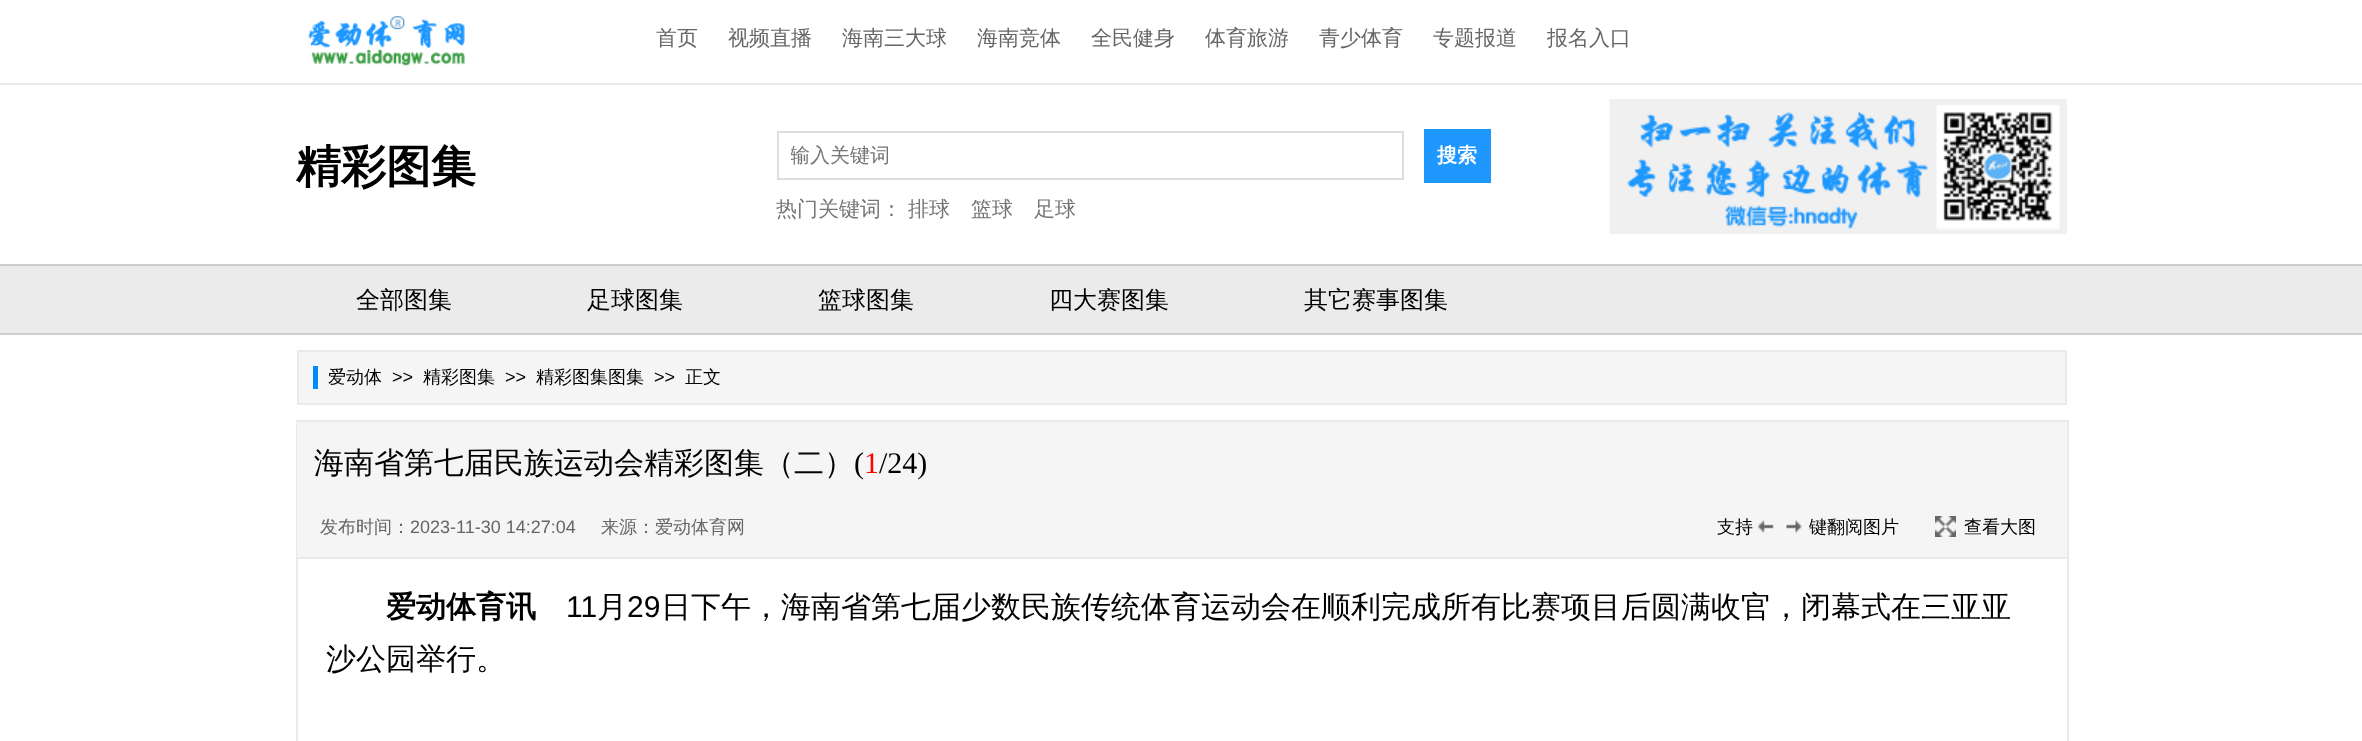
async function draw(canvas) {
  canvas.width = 2362;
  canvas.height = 741;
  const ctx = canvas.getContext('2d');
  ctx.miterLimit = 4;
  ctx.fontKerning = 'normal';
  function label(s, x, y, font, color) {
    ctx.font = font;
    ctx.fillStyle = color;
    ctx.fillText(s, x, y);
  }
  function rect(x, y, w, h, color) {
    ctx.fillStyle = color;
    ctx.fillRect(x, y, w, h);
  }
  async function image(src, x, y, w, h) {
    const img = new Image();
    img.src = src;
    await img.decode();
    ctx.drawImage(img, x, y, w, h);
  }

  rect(0, 0, 2362, 741, '#fff');
  rect(0, 83, 2362, 2, '#eaeaea');
  await image('assets/img1.png', 308, 16, 157, 50);
  label('首页', 656, 45, '500 21px WenQuanYi Zen Hei', '#666');
  label('视频直播', 728, 45, '500 21px WenQuanYi Zen Hei', '#666');
  label('海南三大球', 842, 45, '500 21px WenQuanYi Zen Hei', '#666');
  label('海南竞体', 977, 45, '500 21px WenQuanYi Zen Hei', '#666');
  label('全民健身', 1091, 45, '500 21px WenQuanYi Zen Hei', '#666');
  label('体育旅游', 1205, 45, '500 21px WenQuanYi Zen Hei', '#666');
  label('青少体育', 1319, 45, '500 21px WenQuanYi Zen Hei', '#666');
  label('专题报道', 1433, 45, '500 21px WenQuanYi Zen Hei', '#666');
  label('报名入口', 1547, 45, '500 21px WenQuanYi Zen Hei', '#666');
  label('精彩图集', 296, 182, 'bold 45px WenQuanYi Zen Hei', '#000');
  ctx.strokeStyle = '#ddd';
  ctx.lineWidth = 2;
  ctx.strokeRect(778, 132, 625, 47);
  ctx.save();
  ctx.beginPath();
  ctx.rect(791, 143, 600, 27);
  ctx.clip();
  label('输入关键词', 790, 162, '500 20px WenQuanYi Zen Hei', '#757575');
  ctx.restore();
  rect(1424, 129, 67, 54, '#1e98ff');
  label('搜索', 1437, 162, 'bold 20px WenQuanYi Zen Hei', '#fff');
  label('热门关键词：', 776, 216, '500 21px WenQuanYi Zen Hei', '#757575');
  label('排球', 908, 216, '500 21px WenQuanYi Zen Hei', '#757575');
  label('篮球', 971, 216, '500 21px WenQuanYi Zen Hei', '#757575');
  label('足球', 1034, 216, '500 21px WenQuanYi Zen Hei', '#757575');
  await image('assets/img2.png', 1609, 99, 458, 135);
  rect(0, 266, 2362, 67, '#ebebeb');
  rect(0, 264, 2362, 2, '#cdcdcd');
  rect(0, 333, 2362, 2, '#cdcdcd');
  label('全部图集', 356, 308, '500 24px WenQuanYi Zen Hei', '#000');
  label('足球图集', 587, 308, '500 24px WenQuanYi Zen Hei', '#000');
  label('篮球图集', 818, 308, '500 24px WenQuanYi Zen Hei', '#000');
  label('四大赛图集', 1049, 308, '500 24px WenQuanYi Zen Hei', '#000');
  label('其它赛事图集', 1304, 308, '500 24px WenQuanYi Zen Hei', '#000');
  rect(299, 352, 1766, 51, '#f5f5f5');
  rect(313, 366, 5, 23, '#008bfe');
  ctx.strokeStyle = '#eaeaea';
  ctx.strokeRect(298, 351, 1768, 53);
  label('爱动体', 328, 383, '500 18px WenQuanYi Zen Hei', '#000');
  label('>>', 392, 383, '18px Liberation Sans', '#000');
  label('精彩图集', 423, 383, '500 18px WenQuanYi Zen Hei', '#000');
  label('>>', 505, 383, '18px Liberation Sans', '#000');
  label('精彩图集图集', 536, 383, '500 18px WenQuanYi Zen Hei', '#000');
  label('>>', 654, 383, '18px Liberation Sans', '#000');
  label('正文', 685, 383, '500 18px WenQuanYi Zen Hei', '#000');
  ctx.strokeRect(297, 421, 1771, 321);
  rect(297, 422, 1770, 135, '#f5f5f5');
  rect(297, 557, 1770, 2, '#eaeaea');
  label('海南省第七届民族运动会精彩图集（二）', 314, 473, '500 30px WenQuanYi Zen Hei', '#000');
  label('(', 854, 473, '30px Liberation Serif', '#000');
  label('1', 864, 473, '30px Liberation Serif', '#f00');
  label('/24)', 879, 473, '30px Liberation Serif', '#000');
  label('发布时间：', 320, 533, '500 18px WenQuanYi Zen Hei', '#666');
  label('2023-11-30 14:27:04', 410, 533, '18px Liberation Sans', '#666');
  label('来源：爱动体育网', 601, 533, '500 18px WenQuanYi Zen Hei', '#666');
  label('支持', 1717, 533, '500 18px WenQuanYi Zen Hei', '#000');
  await image('assets/img3.png', 1757, 520, 45, 13);
  label('键翻阅图片', 1809, 533, '500 18px WenQuanYi Zen Hei', '#000');
  await image('assets/img4.png', 1935, 516, 21, 21);
  label('查看大图', 1964, 533, '500 18px WenQuanYi Zen Hei', '#000');
  label('爱动体育讯', 386, 617, 'bold 30px WenQuanYi Zen Hei', '#000');
  label('11', 566, 617, '30px Liberation Sans', '#000');
  label('月', 597, 617, '500 30px WenQuanYi Zen Hei', '#000');
  label('29', 627, 617, '30px Liberation Sans', '#000');
  label('日下午，海南省第七届少数民族传统体育运动会在顺利完成所有比赛项目后圆满收官，闭幕式在三亚亚', 661, 617, '500 30px WenQuanYi Zen Hei', '#000');
  label('沙公园举行。', 326, 669, '500 30px WenQuanYi Zen Hei', '#000');
}

draw(document.querySelector('canvas'));
